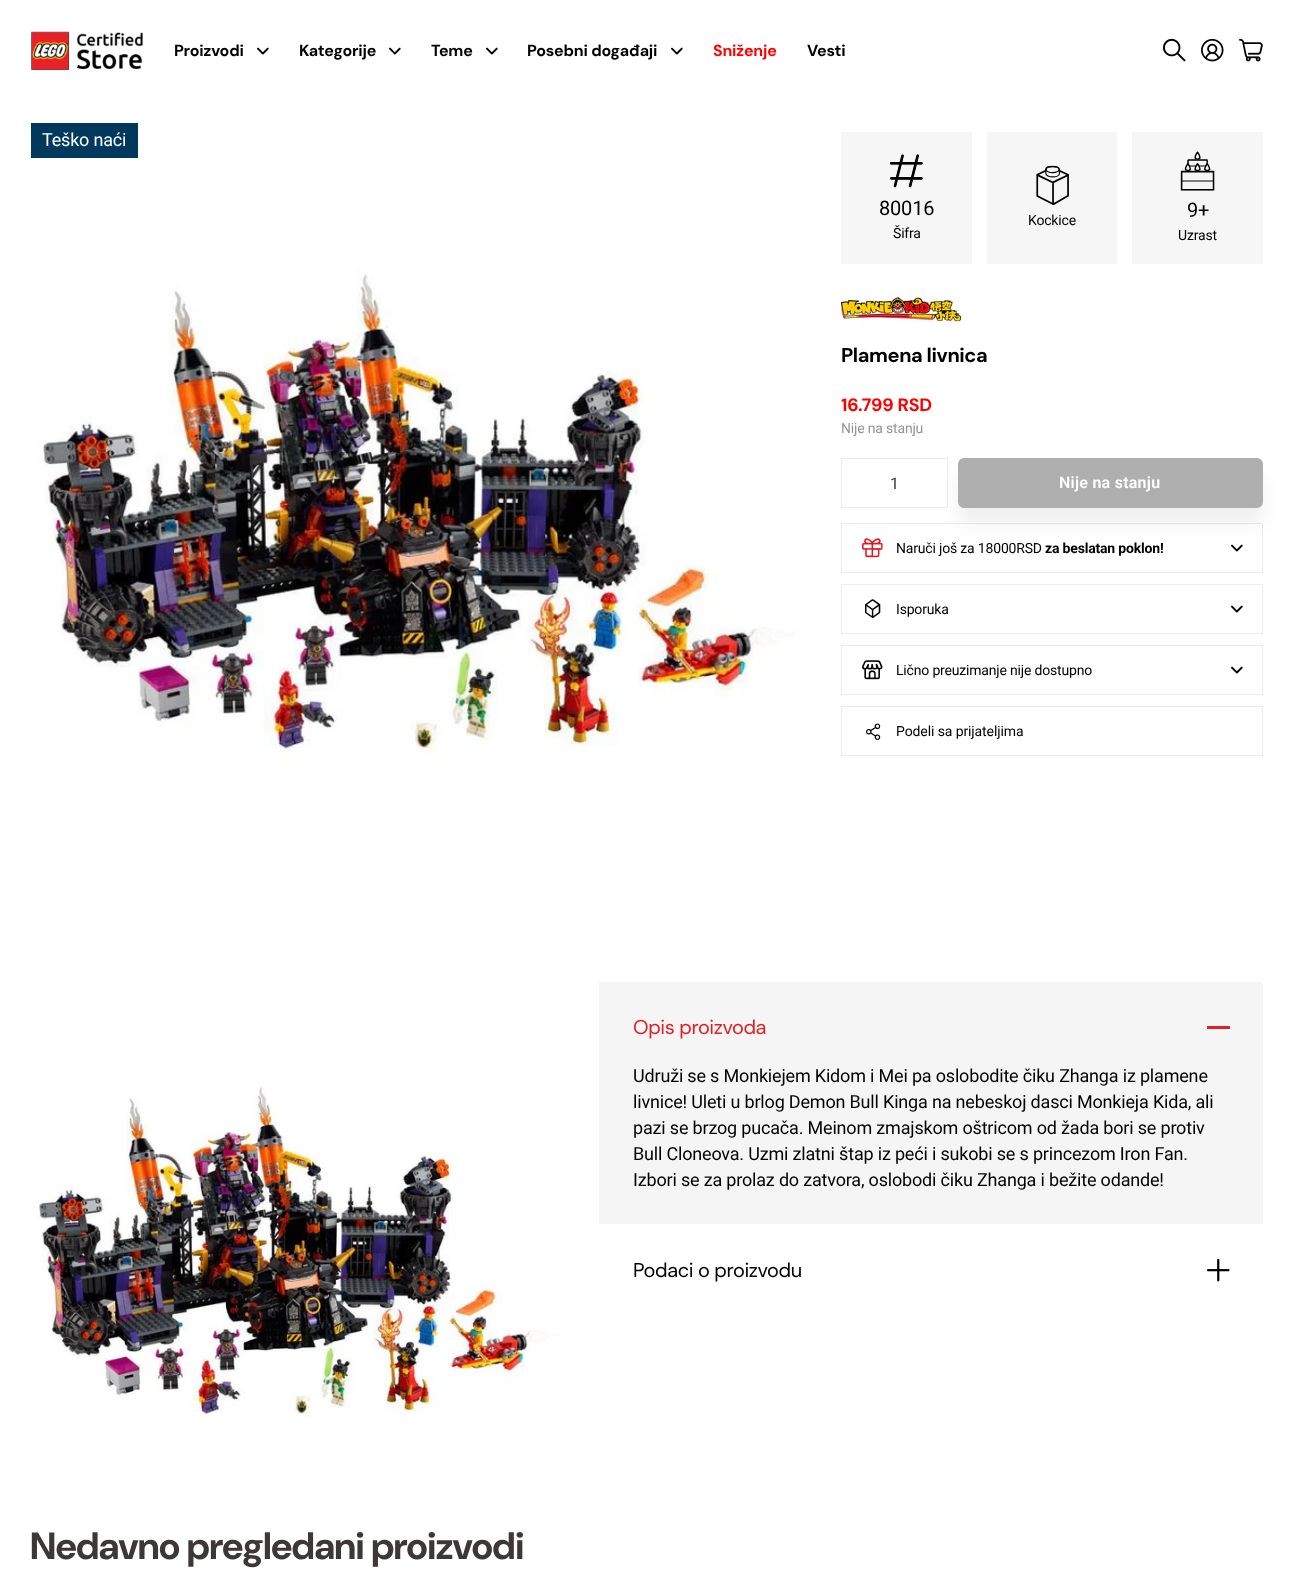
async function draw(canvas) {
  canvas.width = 1293;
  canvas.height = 1587;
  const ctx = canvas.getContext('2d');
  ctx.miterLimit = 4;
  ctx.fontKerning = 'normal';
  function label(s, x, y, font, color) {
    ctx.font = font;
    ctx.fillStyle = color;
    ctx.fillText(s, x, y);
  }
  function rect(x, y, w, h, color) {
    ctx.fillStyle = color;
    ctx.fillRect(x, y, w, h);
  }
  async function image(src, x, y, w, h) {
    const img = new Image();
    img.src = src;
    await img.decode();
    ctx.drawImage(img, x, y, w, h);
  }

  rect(0, 0, 1293, 1587, '#fff');
  await image('assets/img1.png', 30, 31, 113, 40);
  ctx.letterSpacing = '-0.2px';
  label('Proizvodi', 174, 56, 'bold 16px "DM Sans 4"', '#020101');
  await image('assets/img2.png', 257, 47, 12, 8);
  label('Kategorije', 299, 56, 'bold 16px "DM Sans 4"', '#020101');
  await image('assets/img2.png', 389, 47, 12, 8);
  label('Teme', 431, 56, 'bold 16px "DM Sans 4"', '#020101');
  await image('assets/img2.png', 486, 47, 12, 8);
  label('Posebni događaji', 527, 56, 'bold 16px "DM Sans 4"', '#020101');
  await image('assets/img2.png', 671, 47, 12, 8);
  label('Sniženje', 713, 56, 'bold 16px "DM Sans 4"', '#f00');
  label('Vesti', 807, 56, 'bold 16px "DM Sans 4"', '#020101');
  await image('assets/img3.png', 1162, 38, 24, 24);
  await image('assets/img4.png', 1201, 38, 23, 24);
  await image('assets/img5.png', 1239, 38, 24, 24);
  await image('assets/img6.png', 30, 122, 779, 779);
  rect(31, 123, 107, 35, '#00395d');
  ctx.letterSpacing = '-0.18px';
  label('Teško naći', 42, 146, '18px Roboto', '#fff');
  rect(841, 132, 131, 132, '#f6f6f6');
  await image('assets/img7.png', 889, 153, 35, 35);
  label('80016', 879, 215, '20px Roboto', '#020101');
  label('Šifra', 893, 238, '14px Roboto', '#020101');
  rect(987, 132, 130, 132, '#f6f6f6');
  await image('assets/img8.png', 1036, 165, 33, 41);
  label('Kockice', 1028, 225, '14px Roboto', '#020101');
  rect(1132, 132, 131, 132, '#f6f6f6');
  await image('assets/img9.png', 1180, 151, 35, 40);
  label('9+', 1187, 217, '20px Roboto', '#020101');
  label('Uzrast', 1178, 240, '14px Roboto', '#020101');
  await image('assets/img10.png', 841, 295, 120, 32);
  ctx.letterSpacing = '-0.4px';
  label('Plamena livnica', 841, 362, 'bold 20px "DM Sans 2"', '#020101');
  ctx.letterSpacing = '-0.18px';
  label('16.799 RSD', 841, 411, 'bold 18px DM Sans', '#f00');
  label('Nije na stanju', 841, 433, '14px Roboto', '#949494');
  ctx.strokeStyle = '#ebebeb';
  ctx.strokeRect(841.5, 523.5, 421, 49);
  await image('assets/img2.png', 1231, 544, 12, 8);
  ctx.fillStyle = '#0000000f';
  ctx.filter = 'blur(8px)';
  ctx.beginPath();
  ctx.roundRect(958, 474, 305, 50, 6);
  ctx.fill();
  ctx.filter = 'none';
  ctx.strokeRect(841.5, 458.5, 106, 49);
  ctx.letterSpacing = '-0.2px';
  label('1', 890, 489, '16px Roboto', '#3e3737');
  ctx.fillStyle = '#afafaf';
  ctx.beginPath();
  ctx.roundRect(959, 459, 303, 48, 5);
  ctx.fill();
  ctx.strokeStyle = '#afafaf';
  ctx.lineWidth = 2;
  ctx.stroke();
  ctx.letterSpacing = '0.25px';
  label('Nije na stanju', 1059, 488, '600 16px Roboto', '#fff');
  await image('assets/img11.png', 862, 538, 21, 20);
  ctx.letterSpacing = '-0.18px';
  label('Naruči još za 18000RSD', 896, 553, '14px Roboto', '#020101');
  label('za beslatan poklon!', 1045, 553, 'bold 14px Roboto', '#020101');
  ctx.strokeStyle = '#ebebeb';
  ctx.lineWidth = 1;
  ctx.strokeRect(841.5, 584.5, 421, 49);
  await image('assets/img12.png', 865, 599, 16, 20);
  label('Isporuka', 896, 614, '14px Roboto', '#020101');
  await image('assets/img2.png', 1231, 605, 12, 8);
  ctx.strokeRect(841.5, 645.5, 421, 49);
  await image('assets/img13.png', 862, 660, 21, 20);
  label('Lično preuzimanje nije dostupno', 896, 675, '14px Roboto', '#020101');
  await image('assets/img2.png', 1231, 666, 12, 8);
  ctx.strokeRect(841.5, 706.5, 421, 49);
  await image('assets/img14.png', 866, 723, 15, 17);
  ctx.letterSpacing = '-0.1px';
  label('Podeli sa prijateljima', 896, 736, '14px Roboto', '#020101');
  await image('assets/img15.png', 36, 1086, 522, 333);
  rect(599, 982, 664, 242, '#f5f5f5');
  ctx.letterSpacing = '-0.4px';
  label('Opis proizvoda', 633, 1034, '20px DM Sans', '#df1f26');
  rect(1207, 1026, 23, 3, '#df1f26');
  ctx.letterSpacing = '-0.18px';
  label('Udruži se s Monkiejem Kidom i Mei pa oslobodite čiku Zhanga iz plamene', 633, 1082, '18px Roboto', '#020101');
  label('livnice! Uleti u brlog Demon Bull Kinga na nebeskoj dasci Monkieja Kida, ali', 633, 1108, '18px Roboto', '#020101');
  label('pazi se brzog pucača. Meinom zmajskom oštricom od žada bori se protiv', 633, 1134, '18px Roboto', '#020101');
  label('Bull Cloneova. Uzmi zlatni štap iz peći i sukobi se s princezom Iron Fan.', 633, 1160, '18px Roboto', '#020101');
  label('Izbori se za prolaz do zatvora, oslobodi čiku Zhanga i bežite odande!', 633, 1186, '18px Roboto', '#020101');
  ctx.letterSpacing = '-0.4px';
  label('Podaci o proizvodu', 633, 1277, '20px DM Sans', '#020101');
  await image('assets/img16.png', 1207, 1258, 23, 24);
  ctx.letterSpacing = '-0.75px';
  label('Nedavno pregledani proizvodi', 30, 1559, 'bold 38px "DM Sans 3"', '#3e3737');
}

draw(document.querySelector('canvas'));
